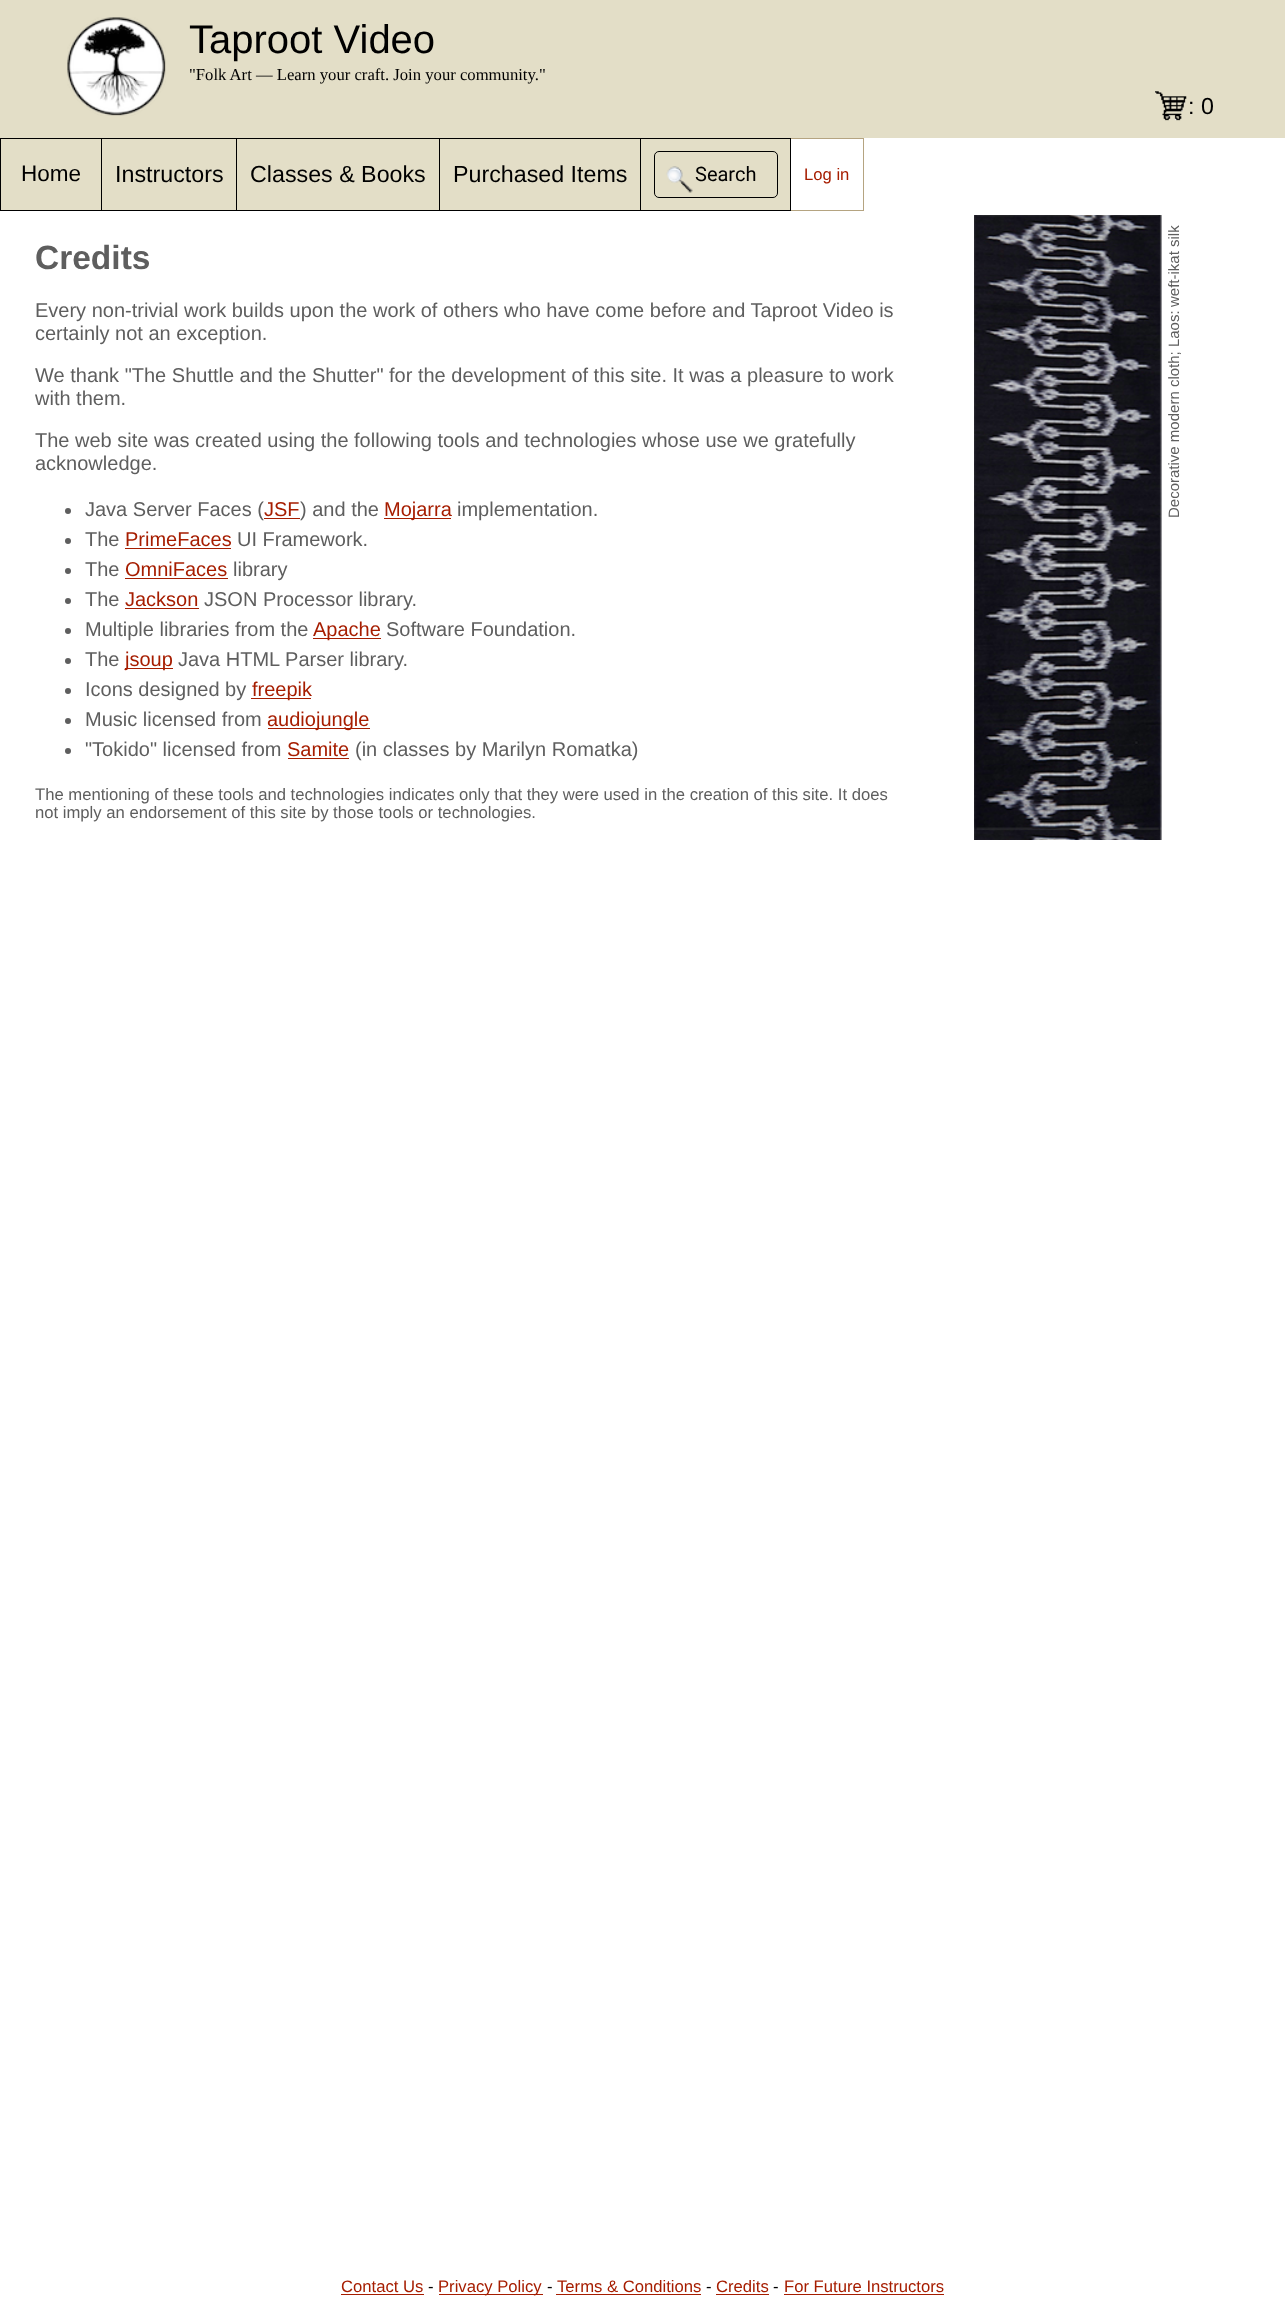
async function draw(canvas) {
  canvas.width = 1285;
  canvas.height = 2312;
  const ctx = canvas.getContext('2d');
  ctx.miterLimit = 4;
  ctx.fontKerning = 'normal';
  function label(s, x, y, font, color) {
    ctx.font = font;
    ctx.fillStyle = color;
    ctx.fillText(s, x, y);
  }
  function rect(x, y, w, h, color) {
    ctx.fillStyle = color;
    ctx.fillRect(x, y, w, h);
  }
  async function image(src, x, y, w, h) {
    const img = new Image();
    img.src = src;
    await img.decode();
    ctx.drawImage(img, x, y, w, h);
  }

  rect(0, 0, 1285, 2312, '#fff');
  rect(0, 0, 1285, 138, '#e3dec7');
  await image('assets/img1.png', 67, 17, 99, 99);
  label('Taproot Video', 189, 53, '40px Liberation Sans', '#000');
  label('"Folk Art — Learn your craft. Join your community."', 189, 80, '16.67px Liberation Serif', '#000');
  await image('assets/img2.png', 1155, 91, 32, 30);
  label(': 0', 1188, 114, '23.25px Liberation Sans', '#000');
  rect(1, 139, 789, 71, '#e3dec7');
  rect(790, 138, 74, 1, '#b5a481');
  rect(640, 138, 151, 1, '#000');
  rect(863, 138, 1, 73, '#b5a481');
  rect(790, 210, 74, 1, '#b5a481');
  rect(790, 138, 1, 73, '#000');
  rect(640, 210, 151, 1, '#000');
  rect(640, 138, 1, 73, '#000');
  rect(439, 138, 202, 1, '#000');
  rect(439, 210, 202, 1, '#000');
  rect(439, 138, 1, 73, '#000');
  rect(236, 138, 204, 1, '#000');
  rect(236, 210, 204, 1, '#000');
  rect(236, 138, 1, 73, '#000');
  rect(101, 138, 137, 1, '#000');
  rect(101, 210, 137, 1, '#000');
  rect(101, 138, 1, 73, '#000');
  rect(0, 138, 103, 1, '#000');
  rect(0, 210, 103, 1, '#000');
  rect(0, 138, 1, 73, '#000');
  label('Home', 21, 181, '22.5px Liberation Sans', '#000');
  label('Instructors', 115, 182, '23.25px Liberation Sans', '#000');
  label('Classes & Books', 250, 182, '23.25px Liberation Sans', '#000');
  label('Purchased Items', 453, 182, '23.25px Liberation Sans', '#000');
  ctx.beginPath();
  ctx.roundRect(654.5, 151.5, 123, 46, 4.5);
  ctx.strokeStyle = '#000';
  ctx.stroke();
  await image('assets/img3.png', 666, 166, 27, 27);
  label('Search', 695, 181, '20px Roboto', '#000');
  label('Log in', 804, 180, '16.67px Liberation Sans', '#a61d00');
  label('Credits', 35, 269, 'bold 33.5px Liberation Sans', '#5e5e5e');
  label('Every non-trivial work builds upon the work of others who have come before and Taproot Video is', 35, 317, '20px Liberation Sans', '#5e5e5e');
  label('certainly not an exception.', 35, 340, '20px Liberation Sans', '#5e5e5e');
  label('We thank "The Shuttle and the Shutter" for the development of this site. It was a pleasure to work', 35, 382, '20px Liberation Sans', '#5e5e5e');
  label('with them.', 35, 405, '20px Liberation Sans', '#5e5e5e');
  label('The web site was created using the following tools and technologies whose use we gratefully', 35, 447, '20px Liberation Sans', '#5e5e5e');
  label('acknowledge.', 35, 470, '20px Liberation Sans', '#5e5e5e');
  ctx.beginPath();
  ctx.arc(68, 511, 3, 0, 2 * Math.PI);
  ctx.fill();
  label('Java Server Faces (', 85, 516, '20px Liberation Sans', '#5e5e5e');
  label('JSF', 264, 516, '20px Liberation Sans', '#a61d00');
  rect(264, 518, 36, 1, '#a61d00');
  label(') and the', 300, 516, '20px Liberation Sans', '#5e5e5e');
  rect(384, 518, 67, 1, '#a61d00');
  label('Mojarra', 384, 516, '20px Liberation Sans', '#a61d00');
  label('implementation.', 457, 516, '20px Liberation Sans', '#5e5e5e');
  ctx.beginPath();
  ctx.arc(68, 541, 3, 0, 2 * Math.PI);
  ctx.fill();
  label('The', 85, 546, '20px Liberation Sans', '#5e5e5e');
  label('PrimeFaces', 125, 546, '20px Liberation Sans', '#a61d00');
  rect(125, 548, 106, 1, '#a61d00');
  label('UI Framework.', 237, 546, '20px Liberation Sans', '#5e5e5e');
  ctx.beginPath();
  ctx.arc(68, 571, 3, 0, 2 * Math.PI);
  ctx.fill();
  label('The', 85, 576, '20px Liberation Sans', '#5e5e5e');
  label('OmniFaces', 125, 576, '20px Liberation Sans', '#a61d00');
  rect(125, 578, 103, 1, '#a61d00');
  label('library', 233, 576, '20px Liberation Sans', '#5e5e5e');
  ctx.beginPath();
  ctx.arc(68, 601, 3, 0, 2 * Math.PI);
  ctx.fill();
  label('The', 85, 606, '20px Liberation Sans', '#5e5e5e');
  label('Jackson', 125, 606, '20px Liberation Sans', '#a61d00');
  rect(125, 608, 74, 1, '#a61d00');
  label('JSON Processor library.', 204, 606, '20px Liberation Sans', '#5e5e5e');
  ctx.beginPath();
  ctx.arc(68, 631, 3, 0, 2 * Math.PI);
  ctx.fill();
  label('Multiple libraries from the', 85, 636, '20px Liberation Sans', '#5e5e5e');
  rect(313, 638, 68, 1, '#a61d00');
  label('Apache', 313, 636, '20px Liberation Sans', '#a61d00');
  label('Software Foundation.', 386, 636, '20px Liberation Sans', '#5e5e5e');
  ctx.beginPath();
  ctx.arc(68, 661, 3, 0, 2 * Math.PI);
  ctx.fill();
  label('The', 85, 666, '20px Liberation Sans', '#5e5e5e');
  rect(125, 668, 48, 1, '#a61d00');
  label('jsoup', 125, 666, '20px Liberation Sans', '#a61d00');
  label('Java HTML Parser library.', 178, 666, '20px Liberation Sans', '#5e5e5e');
  ctx.beginPath();
  ctx.arc(68, 691, 3, 0, 2 * Math.PI);
  ctx.fill();
  label('Icons designed by', 85, 696, '20px Liberation Sans', '#5e5e5e');
  rect(251, 698, 60, 1, '#a61d00');
  label('freepik', 252, 696, '20px Liberation Sans', '#a61d00');
  ctx.fillStyle = '#5e5e5e';
  ctx.beginPath();
  ctx.arc(68, 721, 3, 0, 2 * Math.PI);
  ctx.fill();
  label('Music licensed from', 85, 726, '20px Liberation Sans', '#5e5e5e');
  rect(268, 728, 102, 1, '#a61d00');
  label('audiojungle', 267, 726, '20px Liberation Sans', '#a61d00');
  ctx.fillStyle = '#5e5e5e';
  ctx.beginPath();
  ctx.arc(68, 751, 3, 0, 2 * Math.PI);
  ctx.fill();
  label('"Tokido" licensed from', 85, 756, '20px Liberation Sans', '#5e5e5e');
  label('Samite', 287, 756, '20px Liberation Sans', '#a61d00');
  rect(288, 758, 61, 1, '#a61d00');
  label('(in classes by Marilyn Romatka)', 355, 756, '20px Liberation Sans', '#5e5e5e');
  label('The mentioning of these tools and technologies indicates only that they were used in the creation of this site. It does', 35, 800, '16.67px Liberation Sans', '#5e5e5e');
  label('not imply an endorsement of this site by those tools or technologies.', 35, 818, '16.67px Liberation Sans', '#5e5e5e');
  await image('assets/img4.png', 974, 215, 188, 625);
  ctx.font = '15px Liberation Sans';
  ctx.save();
  ctx.translate(1179, 307);
  ctx.rotate(-90 * Math.PI / 180);
  ctx.fillText('weft-ikat silk', 0, 0);
  ctx.restore();
  ctx.save();
  ctx.translate(1179, 518);
  ctx.rotate(-90 * Math.PI / 180);
  ctx.fillText('Decorative modern cloth; Laos:', 0, 0);
  ctx.restore();
  label('Contact Us', 341, 2292, '16.67px Liberation Sans', '#a61d00');
  rect(341, 2294, 83, 1, '#a61d00');
  label('-', 428, 2292, '16.67px Liberation Sans', '#000');
  rect(439, 2294, 104, 1, '#a61d00');
  label('Privacy Policy', 438, 2292, '16.67px Liberation Sans', '#a61d00');
  label('-', 547, 2292, '16.67px Liberation Sans', '#000');
  label('Terms & Conditions', 557, 2292, '16.67px Liberation Sans', '#a61d00');
  rect(556, 2294, 145, 1, '#a61d00');
  label('-', 706, 2292, '16.67px Liberation Sans', '#000');
  label('Credits', 716, 2292, '16.67px Liberation Sans', '#a61d00');
  rect(716, 2294, 53, 1, '#a61d00');
  label('-', 773, 2292, '16.67px Liberation Sans', '#000');
  label('For Future Instructors', 784, 2292, '16.67px Liberation Sans', '#a61d00');
  rect(784, 2294, 160, 1, '#a61d00');
}

draw(document.querySelector('canvas'));
